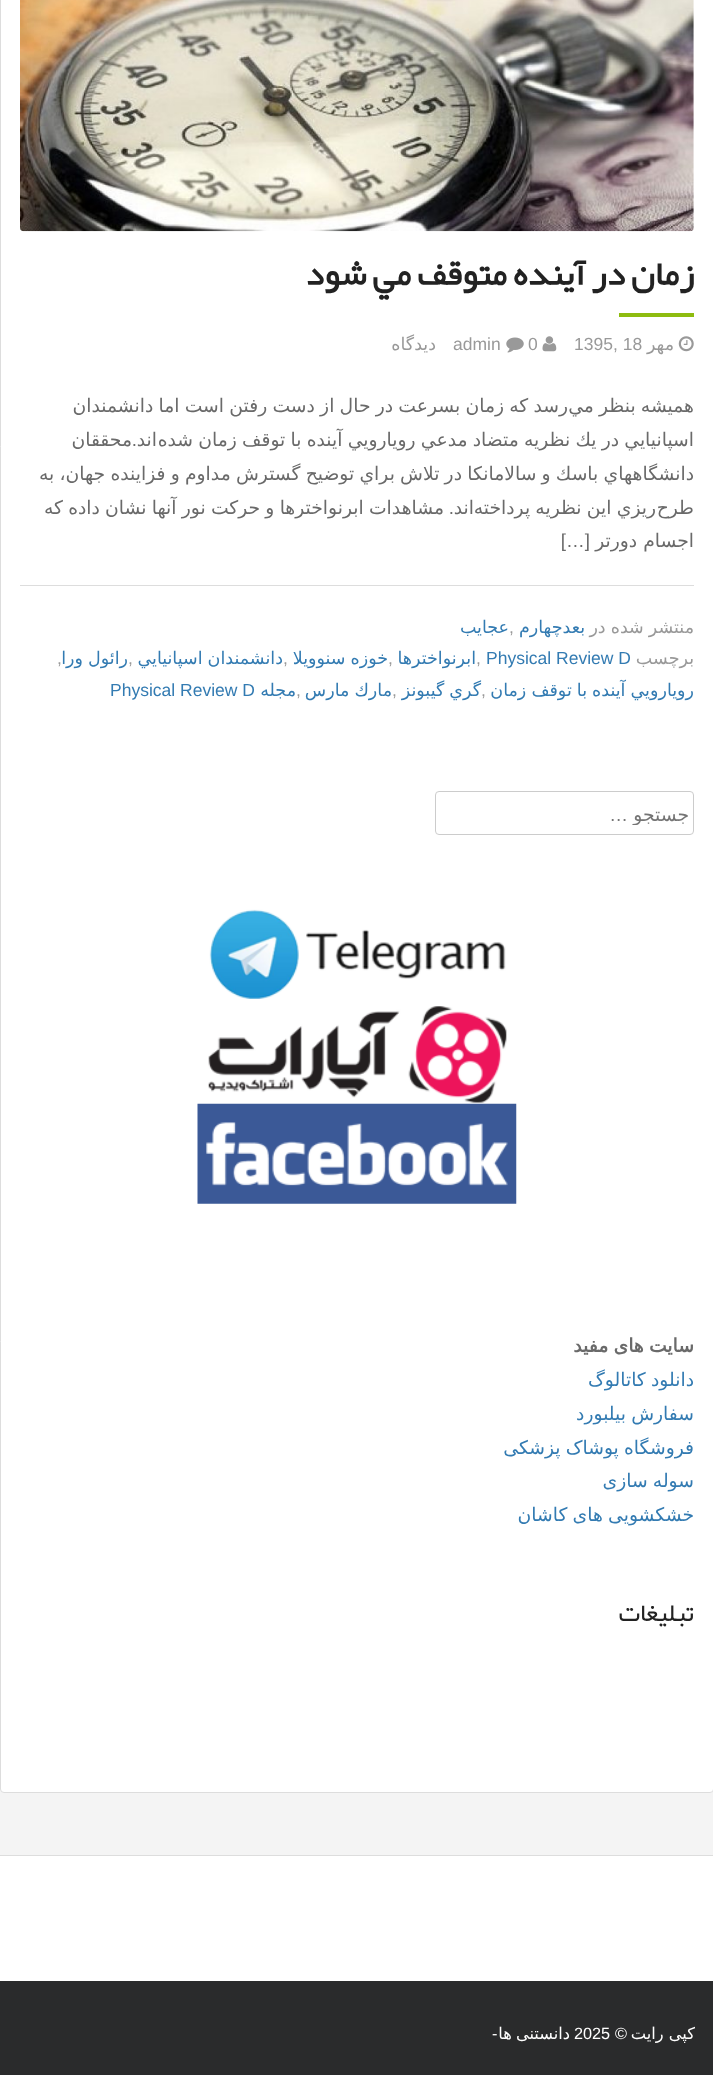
async function draw(canvas) {
  canvas.width = 713;
  canvas.height = 2075;
  const ctx = canvas.getContext('2d');
  ctx.miterLimit = 4;
  ctx.fontKerning = 'normal';
  function label(s, x, y, font, color) {
    ctx.font = font;
    ctx.fillStyle = color;
    ctx.fillText(s, x, y);
  }
  function rect(x, y, w, h, color) {
    ctx.fillStyle = color;
    ctx.fillRect(x, y, w, h);
  }
  async function image(src, x, y, w, h) {
    const img = new Image();
    img.src = src;
    await img.decode();
    ctx.drawImage(img, x, y, w, h);
  }

  rect(0, 0, 713, 2075, '#f4f4f4');
  ctx.fillStyle = '#fff';
  ctx.beginPath();
  ctx.roundRect(0.5, -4.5, 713, 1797, 3.5);
  ctx.fill();
  ctx.strokeStyle = '#ddd';
  ctx.stroke();
  await image('assets/img1.png', 20, 0, 674, 232);
  ctx.direction = 'rtl';
  label('زمان در آينده متوقف مي شود', 694, 285, 'bold 35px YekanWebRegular', '#222');
  rect(619, 313, 75, 4, '#8ebc0f');
  ctx.direction = 'ltr';
  label('0', 528, 350, '17.5px Liberation Sans', '#999');
  await image('assets/img2.png', 506, 337, 18, 16);
  ctx.direction = 'rtl';
  label('دیدگاه', 436, 350, '17.5px DejaVu Sans', '#999');
  await image('assets/img3.png', 678, 336, 16, 16);
  label('مهر', 674, 350, '17.5px DejaVu Sans', '#999');
  ctx.direction = 'ltr';
  label('1395, 18', 574, 350, '17.5px Liberation Sans', '#999');
  await image('assets/img4.png', 542, 336, 15, 16);
  label('admin', 453, 350, '17.5px Liberation Sans', '#999');
  ctx.wordSpacing = '-0.75px';
  ctx.direction = 'rtl';
  label('رسد كه زمان بسرعت در حال از دست رفتن است اما دانشمندان', 568, 412, '18.75px DejaVu Sans', '#6a6a6a');
  label('هميشه بنظر مي', 694, 412, '18.75px DejaVu Sans', '#6a6a6a');
  label('اسپانيايي در يك نظريه متضاد مدعي رويارويي آينده با توقف زمان شده', 694, 446, '18.75px DejaVu Sans', '#6a6a6a');
  ctx.wordSpacing = '0px';
  label('اند', 157, 446, '18.75px DejaVu Sans', '#6a6a6a');
  label('.', 137, 446, '18.75px Liberation Sans', '#6a6a6a');
  label('محققان', 132, 446, '18.75px DejaVu Sans', '#6a6a6a');
  ctx.wordSpacing = '-0.75px';
  label('دانشگاههاي باسك و سالامانكا در تلاش براي توضيح گسترش مداوم و فزاينده جهان، به', 694, 480, '18.75px DejaVu Sans', '#6a6a6a');
  label('ريزي اين نظريه پرداخته', 656, 514, '18.75px DejaVu Sans', '#6a6a6a');
  ctx.wordSpacing = '0px';
  label('طرح', 694, 514, '18.75px DejaVu Sans', '#6a6a6a');
  label('اند', 474, 514, '18.75px DejaVu Sans', '#6a6a6a');
  label('.', 454, 514, '18.75px Liberation Sans', '#6a6a6a');
  ctx.wordSpacing = '-0.75px';
  label('مشاهدات ابرنواخترها و حركت نور آنها نشان داده كه', 444, 514, '18.75px DejaVu Sans', '#6a6a6a');
  ctx.wordSpacing = '0px';
  label('اجسام دورتر', 694, 547, '18.75px DejaVu Sans', '#6a6a6a');
  label('[…]', 590, 547, '18.75px Liberation Sans', '#6a6a6a');
  rect(20, 585, 674, 1, '#ddd');
  ctx.wordSpacing = '-0.5px';
  label('منتشر شده در', 694, 633, '17.5px DejaVu Sans', '#999');
  ctx.wordSpacing = '0px';
  label('بعدچهارم', 585, 633, '17.5px DejaVu Sans', '#337bb2');
  ctx.direction = 'ltr';
  label(',', 509, 633, '17.5px Liberation Sans', '#999');
  ctx.direction = 'rtl';
  label('عجایب', 509, 633, '17.5px DejaVu Sans', '#337bb2');
  label('برچسب', 694, 664, '17.5px DejaVu Sans', '#999');
  ctx.direction = 'ltr';
  label('Physical Review D', 486, 664, '17.5px Liberation Sans', '#337bb2');
  label(',', 476, 664, '17.5px Liberation Sans', '#999');
  ctx.direction = 'rtl';
  label('ابرنواخترها', 476, 664, '17.5px DejaVu Sans', '#337bb2');
  ctx.direction = 'ltr';
  label(',', 388, 664, '17.5px Liberation Sans', '#999');
  ctx.wordSpacing = '-0.5px';
  ctx.direction = 'rtl';
  label('خوزه سنوويلا', 388, 664, '17.5px DejaVu Sans', '#337bb2');
  ctx.wordSpacing = '0px';
  ctx.direction = 'ltr';
  label(',', 283, 664, '17.5px Liberation Sans', '#999');
  ctx.wordSpacing = '-0.5px';
  ctx.direction = 'rtl';
  label('دانشمندان اسپانيايي', 283, 664, '17.5px DejaVu Sans', '#337bb2');
  ctx.wordSpacing = '0px';
  ctx.direction = 'ltr';
  label(',', 128, 664, '17.5px Liberation Sans', '#999');
  ctx.wordSpacing = '-0.5px';
  ctx.direction = 'rtl';
  label('رائول ورا', 128, 664, '17.5px DejaVu Sans', '#337bb2');
  ctx.wordSpacing = '0px';
  ctx.direction = 'ltr';
  label(',', 57, 664, '17.5px Liberation Sans', '#999');
  ctx.wordSpacing = '-0.5px';
  ctx.direction = 'rtl';
  label('رويارويي آينده با توقف زمان', 694, 696, '17.5px DejaVu Sans', '#337bb2');
  ctx.wordSpacing = '0px';
  ctx.direction = 'ltr';
  label(',', 481, 696, '17.5px Liberation Sans', '#999');
  ctx.wordSpacing = '-0.5px';
  ctx.direction = 'rtl';
  label('گري گيبونز', 481, 696, '17.5px DejaVu Sans', '#337bb2');
  ctx.wordSpacing = '0px';
  ctx.direction = 'ltr';
  label(',', 392, 696, '17.5px Liberation Sans', '#999');
  ctx.wordSpacing = '-0.5px';
  ctx.direction = 'rtl';
  label('مارك مارس', 392, 696, '17.5px DejaVu Sans', '#337bb2');
  ctx.wordSpacing = '0px';
  ctx.direction = 'ltr';
  label(',', 296, 696, '17.5px Liberation Sans', '#999');
  ctx.direction = 'rtl';
  label('مجله', 296, 696, '17.5px DejaVu Sans', '#337bb2');
  ctx.direction = 'ltr';
  label('Physical Review D', 110, 696, '17.5px Liberation Sans', '#337bb2');
  ctx.beginPath();
  ctx.roundRect(435.5, 791.5, 258, 43, 3.5);
  ctx.strokeStyle = '#ccc';
  ctx.stroke();
  ctx.save();
  ctx.beginPath();
  ctx.rect(445, 803, 244, 22);
  ctx.clip();
  ctx.direction = 'rtl';
  label('جستجو', 689, 821, '18.75px DejaVu Sans', '#757575');
  ctx.restore();
  ctx.direction = 'rtl';
  label('…', 628, 821, '18.75px Liberation Sans', '#757575');
  await image('assets/img5.png', 209, 909, 297, 90);
  await image('assets/img6.png', 208, 1006, 299, 97);
  await image('assets/img7.png', 197, 1103, 320, 101);
  ctx.wordSpacing = '-0.75px';
  label('سایت های مفید', 694, 1352, 'bold 18.75px DejaVu Sans', '#6a6a6a');
  label('دانلود کاتالوگ', 694, 1386, '18.75px DejaVu Sans', '#337bb2');
  label('سفارش بیلبورد', 694, 1420, '18.75px DejaVu Sans', '#337bb2');
  label('فروشگاه پوشاک پزشکی', 694, 1454, '18.75px DejaVu Sans', '#337bb2');
  label('سوله سازی', 694, 1487, '18.75px DejaVu Sans', '#337bb2');
  label('خشکشویی های کاشان', 694, 1521, '18.75px DejaVu Sans', '#337bb2');
  ctx.wordSpacing = '0px';
  label('تبلیغات', 694, 1621, '26px YekanWebRegular', '#222');
  rect(0, 1856, 713, 125, '#fff');
  rect(0, 1855, 713, 1, '#ddd');
  rect(0, 1981, 713, 94, '#2a2b2c');
  label('کپی رایت', 695, 2039, '16.25px DejaVu Sans', '#fff');
  label('©', 627, 2039, '16.25px Liberation Sans', '#fff');
  ctx.direction = 'ltr';
  label('2025', 574, 2039, '16.25px Liberation Sans', '#fff');
  ctx.wordSpacing = '-1px';
  ctx.direction = 'rtl';
  label('دانستنی ها', 570, 2039, '16.25px DejaVu Sans', '#fff');
  ctx.wordSpacing = '0px';
  ctx.direction = 'ltr';
  label('-', 492, 2039, '16.25px Liberation Sans', '#fff');
}

draw(document.querySelector('canvas'));
